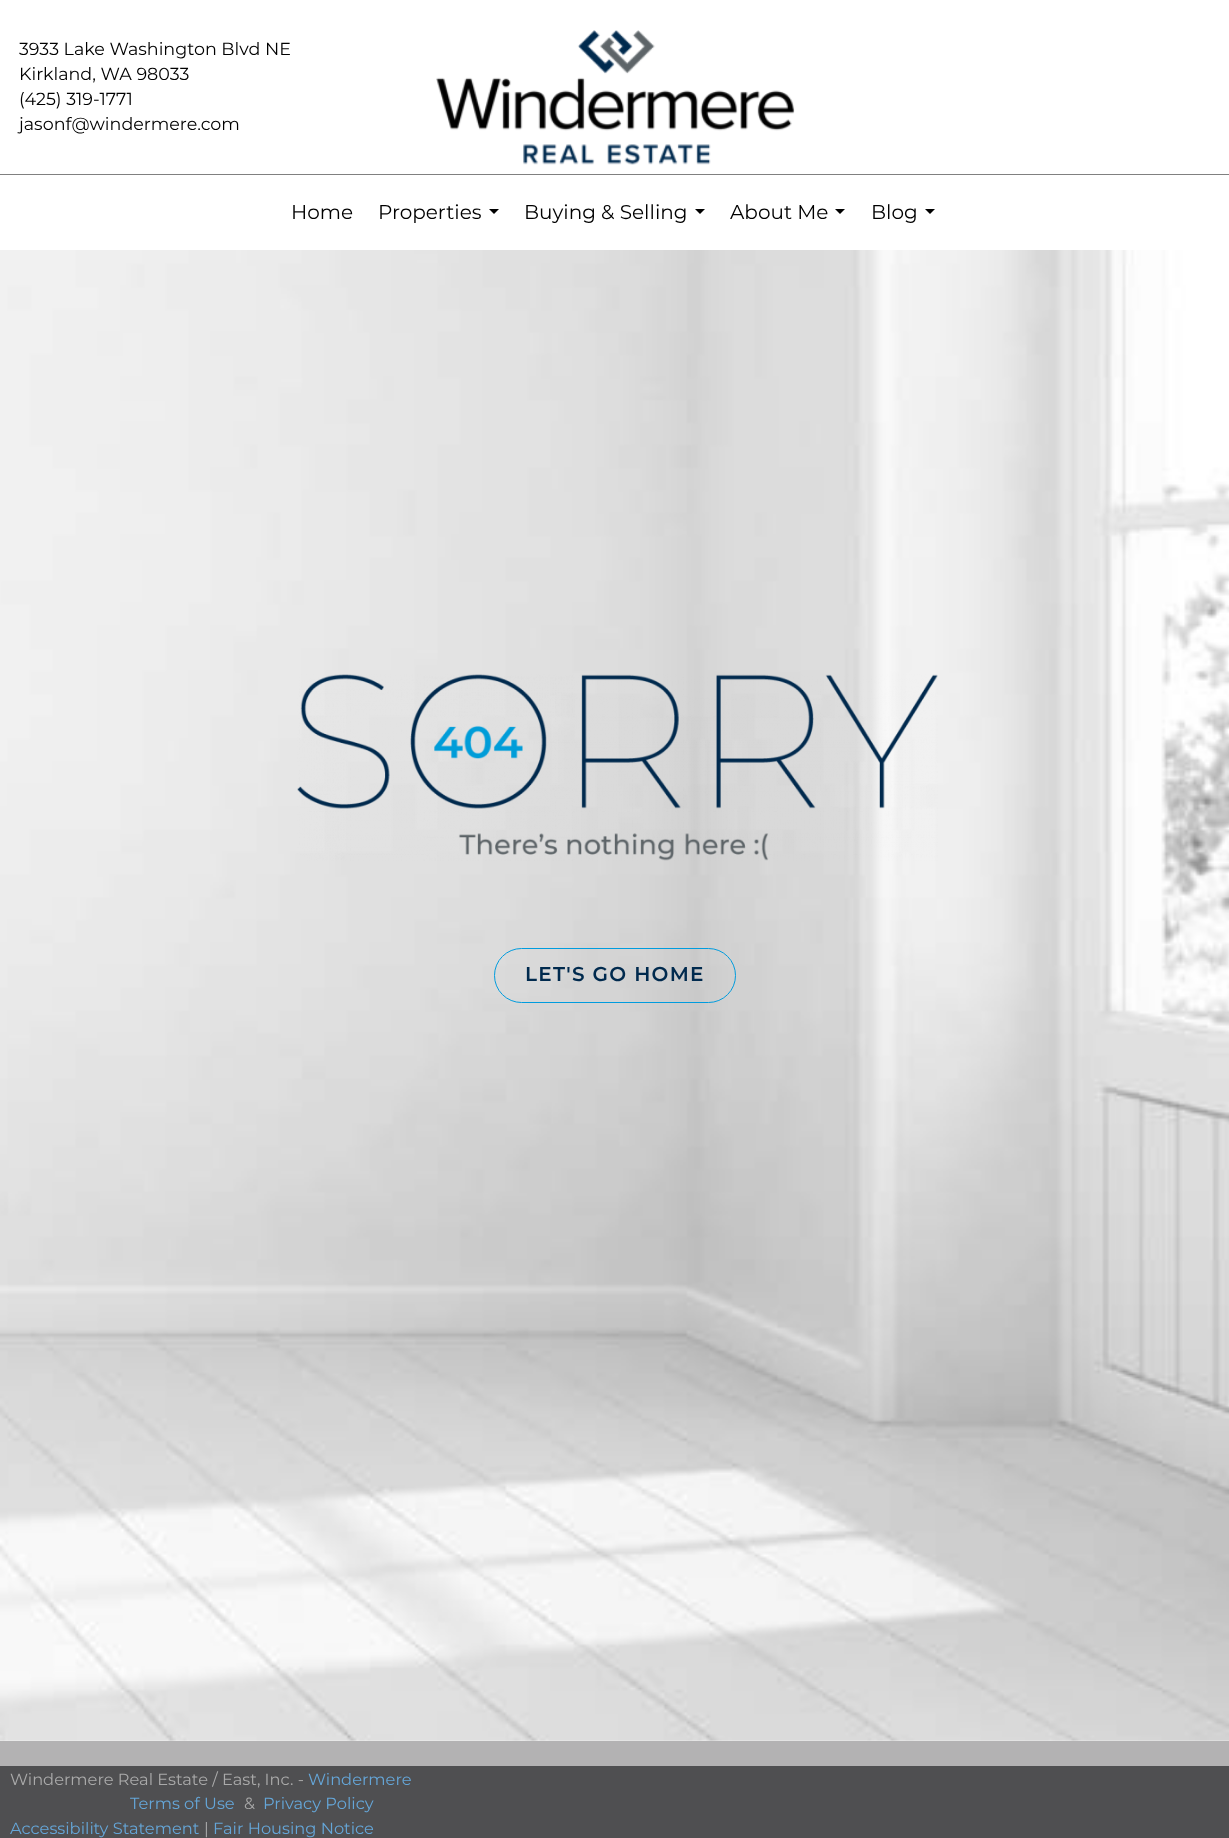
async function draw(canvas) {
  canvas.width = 1229;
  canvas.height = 1838;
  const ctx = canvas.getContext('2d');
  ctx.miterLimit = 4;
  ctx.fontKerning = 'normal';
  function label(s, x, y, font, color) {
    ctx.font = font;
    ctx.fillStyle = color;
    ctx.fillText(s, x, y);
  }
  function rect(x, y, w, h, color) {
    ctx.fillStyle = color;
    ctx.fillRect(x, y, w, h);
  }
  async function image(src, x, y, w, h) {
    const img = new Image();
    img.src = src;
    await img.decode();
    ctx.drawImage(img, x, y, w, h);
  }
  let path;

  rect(0, 0, 1229, 1838, '#fff');
  rect(0, 174, 1229, 1, '#808080');
  label('3933 Lake Washington Blvd NE', 19, 55, '17.5px Montserrat', '#000');
  label('Kirkland, WA 98033', 19, 80, '17.5px Montserrat', '#000');
  label('(425) 319-1771', 19, 105, '17.5px Montserrat', '#000');
  label('jasonf@windermere.com', 19, 130, '17.5px Montserrat', '#000');
  await image('assets/img1.png', 436, 30, 359, 135);
  label('Home', 291, 219, '20px Montserrat', '#000');
  label('Properties', 378, 219, '20px Montserrat', '#000');
  path = new Path2D('M489 209H499L494 214Z');
  ctx.fill(path);
  label('Buying & Selling', 524, 219, '20px Montserrat', '#000');
  path = new Path2D('M695 209H705L700 214Z');
  ctx.fill(path);
  label('About Me', 730, 219, '20px Montserrat', '#000');
  path = new Path2D('M835 209H845L840 214Z');
  ctx.fill(path);
  label('Blog', 871, 219, '20px Montserrat', '#000');
  path = new Path2D('M925 209H935L930 214Z');
  ctx.fill(path);
  await image('assets/img2.png', 0, 250, 1229, 1491);
  await image('assets/img3.png', 297, 674, 641, 187);
  ctx.beginPath();
  ctx.roundRect(494.5, 948.5, 241, 54, 27);
  ctx.strokeStyle = '#009cde';
  ctx.stroke();
  ctx.letterSpacing = '1.25px';
  label('LET\'S GO HOME', 525, 981, '600 20px Montserrat', '#002a4e');
  rect(0, 1741, 1229, 25, '#b3b2b3');
  rect(0, 1766, 1229, 72, '#4f4f51');
  ctx.letterSpacing = '0px';
  label('Windermere Real Estate / East, Inc. -', 10, 1785, '16.25px Montserrat', '#aaa');
  label('Windermere', 308, 1785, '16.25px Montserrat', '#65a6d8');
  label('Terms of Use', 130, 1809, '16.25px Montserrat', '#65a6d8');
  label('&', 244, 1809, '16.25px Montserrat', '#aaa');
  label('Privacy Policy', 263, 1809, '16.25px Montserrat', '#65a6d8');
  label('Accessibility Statement', 10, 1834, '16.25px Montserrat', '#65a6d8');
  label('|', 204, 1834, '16.25px Montserrat', '#aaa');
  label('Fair Housing Notice', 213, 1834, '16.25px Montserrat', '#65a6d8');
}

draw(document.querySelector('canvas'));
